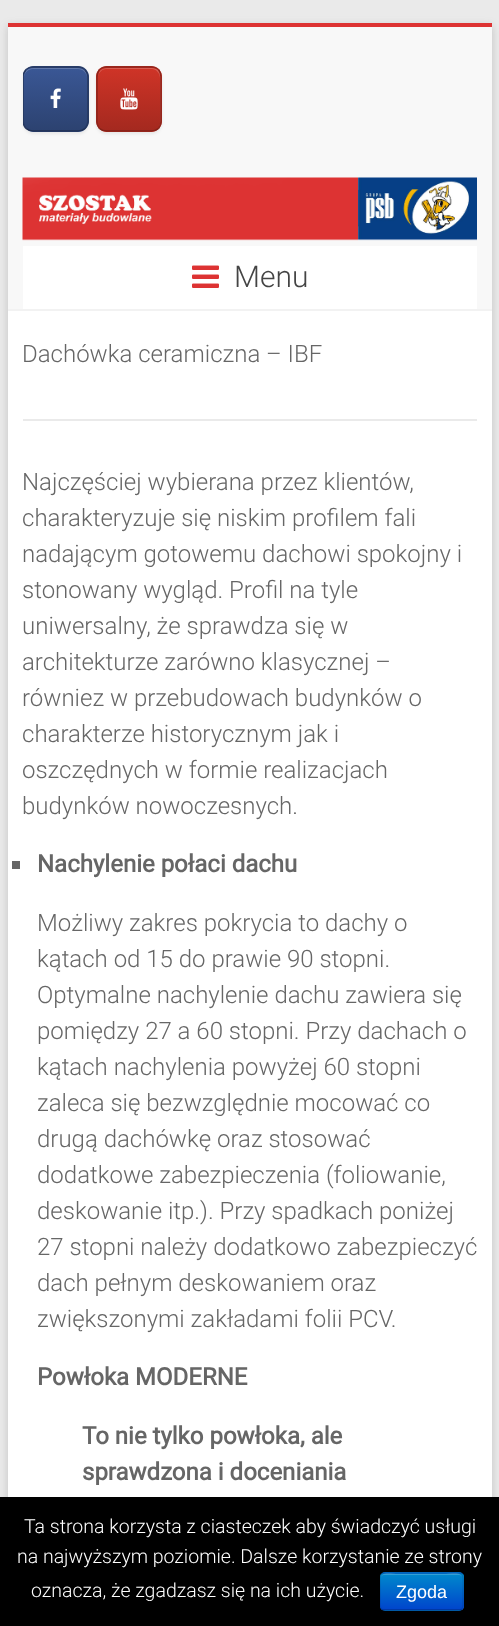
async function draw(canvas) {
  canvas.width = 499;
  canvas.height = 1626;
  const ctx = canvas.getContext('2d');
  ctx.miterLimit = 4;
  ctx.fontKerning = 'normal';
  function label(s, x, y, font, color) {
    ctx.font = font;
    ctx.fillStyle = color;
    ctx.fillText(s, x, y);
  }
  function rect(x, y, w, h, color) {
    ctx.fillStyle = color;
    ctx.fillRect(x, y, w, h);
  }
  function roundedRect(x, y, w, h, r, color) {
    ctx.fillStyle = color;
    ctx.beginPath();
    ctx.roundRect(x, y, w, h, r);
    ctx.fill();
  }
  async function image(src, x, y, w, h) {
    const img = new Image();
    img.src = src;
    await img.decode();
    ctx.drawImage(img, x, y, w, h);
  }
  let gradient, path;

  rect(0, 0, 499, 1626, '#eaeaea');
  ctx.fillStyle = '#6464644d';
  ctx.filter = 'blur(4.5px)';
  ctx.beginPath();
  ctx.rect(8, 26, 484, 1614);
  ctx.fill();
  ctx.filter = 'none';
  rect(8, 311, 484, 1186, '#fff');
  rect(8, 23, 484, 4, '#d33');
  rect(8, 27, 484, 282, '#f8f8f8');
  rect(8, 309, 484, 2, '#f2f2f2');
  ctx.fillStyle = '#00000012';
  ctx.filter = 'blur(1.5px)';
  ctx.beginPath();
  ctx.roundRect(23, 68, 66, 66, 11);
  ctx.fill();
  ctx.filter = 'none';
  ctx.save();
  ctx.beginPath();
  ctx.roundRect(23, 66, 66, 66, 11);
  ctx.clip();
  gradient = ctx.createLinearGradient(24, 68, 24, 4.5);
  gradient.addColorStop(0, '#2c4270');
  gradient.addColorStop(1, '#3a5795');
  ctx.fillStyle = gradient;
  ctx.fillRect(23, 66, 66, 2);
  gradient = ctx.createLinearGradient(24, 131, 24, 68);
  gradient.addColorStop(0, '#2c4270');
  gradient.addColorStop(1, '#3a5795');
  ctx.fillStyle = gradient;
  ctx.fillRect(23, 68, 66, 63);
  gradient = ctx.createLinearGradient(24, 194, 24, 131);
  gradient.addColorStop(0, '#2c4270');
  gradient.addColorStop(1, '#3a5795');
  ctx.fillStyle = gradient;
  ctx.fillRect(23, 131, 66, 1);
  ctx.restore();
  ctx.fillStyle = '#ffffff33';
  path = new Path2D('M33 69H78C83 69 87 73 87 78C87 67 79 68 70 68H40C32 68 24 67 24 78C24 73 28 69 33 69Z');
  ctx.fill(path);
  path = new Path2D('M26 69.5C28 68 30.5 67 33 67H78C80.5 67 83 68 85 69.5');
  ctx.strokeStyle = '#273b65';
  ctx.lineWidth = 1.5;
  ctx.stroke(path);
  path = new Path2D('M85 69.5C86.5 71.5 88 74 88 76.5V121.5C88 124 86.5 126.5 85 128.5');
  ctx.strokeStyle = '#25375e';
  ctx.stroke(path);
  path = new Path2D('M85 128.5C83 130 80.5 131 78 131H33C30.5 131 28 130 26 128.5');
  ctx.strokeStyle = '#203053';
  ctx.stroke(path);
  ctx.save();
  ctx.beginPath();
  ctx.rect(23, 65, 454, 85);
  ctx.clip();
  path = new Path2D('M26 128.5C24.5 126.5 23 124 23 121.5V76.5C23 74 24.5 71.5 26 69.5');
  ctx.strokeStyle = '#25375e';
  ctx.stroke(path);
  ctx.restore();
  await image('assets/img1.png', 50, 88, 11, 20);
  ctx.fillStyle = '#00000012';
  ctx.filter = 'blur(1.5px)';
  ctx.beginPath();
  ctx.roundRect(96, 68, 66, 66, 11);
  ctx.fill();
  ctx.filter = 'none';
  ctx.save();
  ctx.beginPath();
  ctx.roundRect(96, 66, 66, 66, 11);
  ctx.clip();
  gradient = ctx.createLinearGradient(98, 68, 98, 4.5);
  gradient.addColorStop(0, '#a4291f');
  gradient.addColorStop(1, '#cf3427');
  ctx.fillStyle = gradient;
  ctx.fillRect(96, 66, 66, 2);
  gradient = ctx.createLinearGradient(98, 131, 98, 68);
  gradient.addColorStop(0, '#a4291f');
  gradient.addColorStop(1, '#cf3427');
  ctx.fillStyle = gradient;
  ctx.fillRect(96, 68, 66, 63);
  gradient = ctx.createLinearGradient(98, 194, 98, 131);
  gradient.addColorStop(0, '#a4291f');
  gradient.addColorStop(1, '#cf3427');
  ctx.fillStyle = gradient;
  ctx.fillRect(96, 131, 66, 1);
  ctx.restore();
  ctx.fillStyle = '#ffffff33';
  path = new Path2D('M106 69H152C156 69 160 73 160 78V123C160 125 159 127 158 129C162 125 161 119 161 114V100C161 64 165 68 130 68H114C106 68 98 67 98 78C98 73 102 69 106 69Z');
  ctx.fill(path);
  path = new Path2D('M99.5 69.5C101.5 68 104 67 106.5 67H151.5C154 67 156.5 68 158.5 69.5');
  ctx.strokeStyle = '#97261c';
  ctx.stroke(path);
  path = new Path2D('M158.5 69.5C160 71.5 161 74 161 76.5V121.5C161 124 160 126.5 158.5 128.5');
  ctx.strokeStyle = '#8f241b';
  ctx.stroke(path);
  path = new Path2D('M158.5 128.5C156.5 130 154 131 151.5 131H106.5C104 131 101.5 130 99.5 128.5');
  ctx.strokeStyle = '#822118';
  ctx.stroke(path);
  path = new Path2D('M99.5 128.5C98 126.5 97 124 97 121.5V76.5C97 74 98 71.5 99.5 69.5');
  ctx.strokeStyle = '#8f241b';
  ctx.stroke(path);
  await image('assets/img2.png', 120, 88, 18, 22);
  await image('assets/img3.png', 22, 177, 455, 64);
  rect(23, 246, 454, 63, '#fff');
  await image('assets/img4.png', 192, 265, 27, 23);
  label('Menu', 234, 287, '300 30px Roboto', '#444');
  label('Dachówka ceramiczna – IBF', 22, 362, '300 24px Roboto', '#666');
  rect(23, 419, 454, 2, '#eaeaea');
  label('Najczęściej wybierana przez klientów,', 22, 490, '300 24px Roboto', '#666');
  label('charakteryzuje się niskim profilem fali', 22, 526, '300 24px Roboto', '#666');
  label('nadającym gotowemu dachowi spokojny i', 22, 562, '300 24px Roboto', '#666');
  label('stonowany wygląd. Profil na tyle', 22, 598, '300 24px Roboto', '#666');
  label('uniwersalny, że sprawdza się w', 22, 634, '300 24px Roboto', '#666');
  label('architekturze zarówno klasycznej –', 22, 670, '300 24px Roboto', '#666');
  label('równiez w przebudowach budynków o', 22, 706, '300 24px Roboto', '#666');
  label('charakterze historycznym jak i', 22, 742, '300 24px Roboto', '#666');
  label('oszczędnych w formie realizacjach', 22, 778, '300 24px Roboto', '#666');
  label('budynków nowoczesnych.', 22, 814, '300 24px Roboto', '#666');
  rect(12, 861, 8, 8, '#666');
  label('Nachylenie połaci dachu', 37, 872, 'bold 24px Roboto', '#666');
  label('Możliwy zakres pokrycia to dachy o', 37, 931, '300 24px Roboto', '#666');
  label('kątach od 15 do prawie 90 stopni.', 37, 967, '300 24px Roboto', '#666');
  label('Optymalne nachylenie dachu zawiera się', 37, 1003, '300 24px Roboto', '#666');
  label('pomiędzy 27 a 60 stopni. Przy dachach o', 37, 1039, '300 24px Roboto', '#666');
  label('kątach nachylenia powyżej 60 stopni', 37, 1075, '300 24px Roboto', '#666');
  label('zaleca się bezwzględnie mocować co', 37, 1111, '300 24px Roboto', '#666');
  label('drugą dachówkę oraz stosować', 37, 1147, '300 24px Roboto', '#666');
  label('dodatkowe zabezpieczenia (foliowanie,', 37, 1183, '300 24px Roboto', '#666');
  label('deskowanie itp.). Przy spadkach poniżej', 37, 1219, '300 24px Roboto', '#666');
  label('27 stopni należy dodatkowo zabezpieczyć', 37, 1255, '300 24px Roboto', '#666');
  label('dach pełnym deskowaniem oraz', 37, 1291, '300 24px Roboto', '#666');
  label('zwiększonymi zakładami folii PCV.', 37, 1327, '300 24px Roboto', '#666');
  label('Powłoka MODERNE', 37, 1385, 'bold 24px Roboto', '#666');
  label('To nie tylko powłoka, ale', 82, 1444, 'bold 24px Roboto', '#666');
  label('sprawdzona i doceniania', 82, 1480, 'bold 24px Roboto', '#666');
  rect(0, 1497, 499, 129, '#000');
  label('Ta strona korzysta z ciasteczek aby świadczyć usługi', 24, 1533, '300 19.5px Roboto', '#fff');
  label('na najwyższym poziomie. Dalsze korzystanie ze strony', 17, 1563, '300 19.5px Roboto', '#fff');
  label('oznacza, że zgadzasz się na ich użycie.', 31, 1597, '300 19.5px Roboto', '#fff');
  roundedRect(380, 1572, 84, 39, 5, '#006dcc');
  ctx.save();
  ctx.beginPath();
  ctx.roundRect(380, 1572, 84, 39, 5);
  ctx.clip();
  gradient = ctx.createLinearGradient(422, 1574, 422, 1610);
  gradient.addColorStop(0, '#08c');
  gradient.addColorStop(1, '#04c');
  ctx.fillStyle = gradient;
  ctx.fillRect(380, 1574, 84, 36);
  ctx.restore();
  ctx.fillStyle = '#ffffff33';
  path = new Path2D('M384 1575H459C461 1575 462 1576 462 1578C462 1571 450 1574 446 1574H396C393 1574 381 1571 381 1578C381 1576 382 1575 384 1575Z');
  ctx.fill(path);
  path = new Path2D('M461.5 1609C461 1610 460 1610 459 1610H384C383 1610 382 1610 381.5 1609');
  ctx.strokeStyle = '#00000040';
  ctx.stroke(path);
  path = new Path2D('M381.5 1609C379.5 1607.5 380 1603.5 380 1601.5V1591.5C380 1571 376.5 1573 396.5 1573H446.5C466.5 1573 463 1571 463 1591.5V1601.5C463 1603.5 463.5 1607.5 461.5 1609');
  ctx.strokeStyle = '#0000001a';
  ctx.stroke(path);
  label('Zgoda', 396, 1598, '18px Liberation Sans', '#fff');
}

draw(document.querySelector('canvas'));
